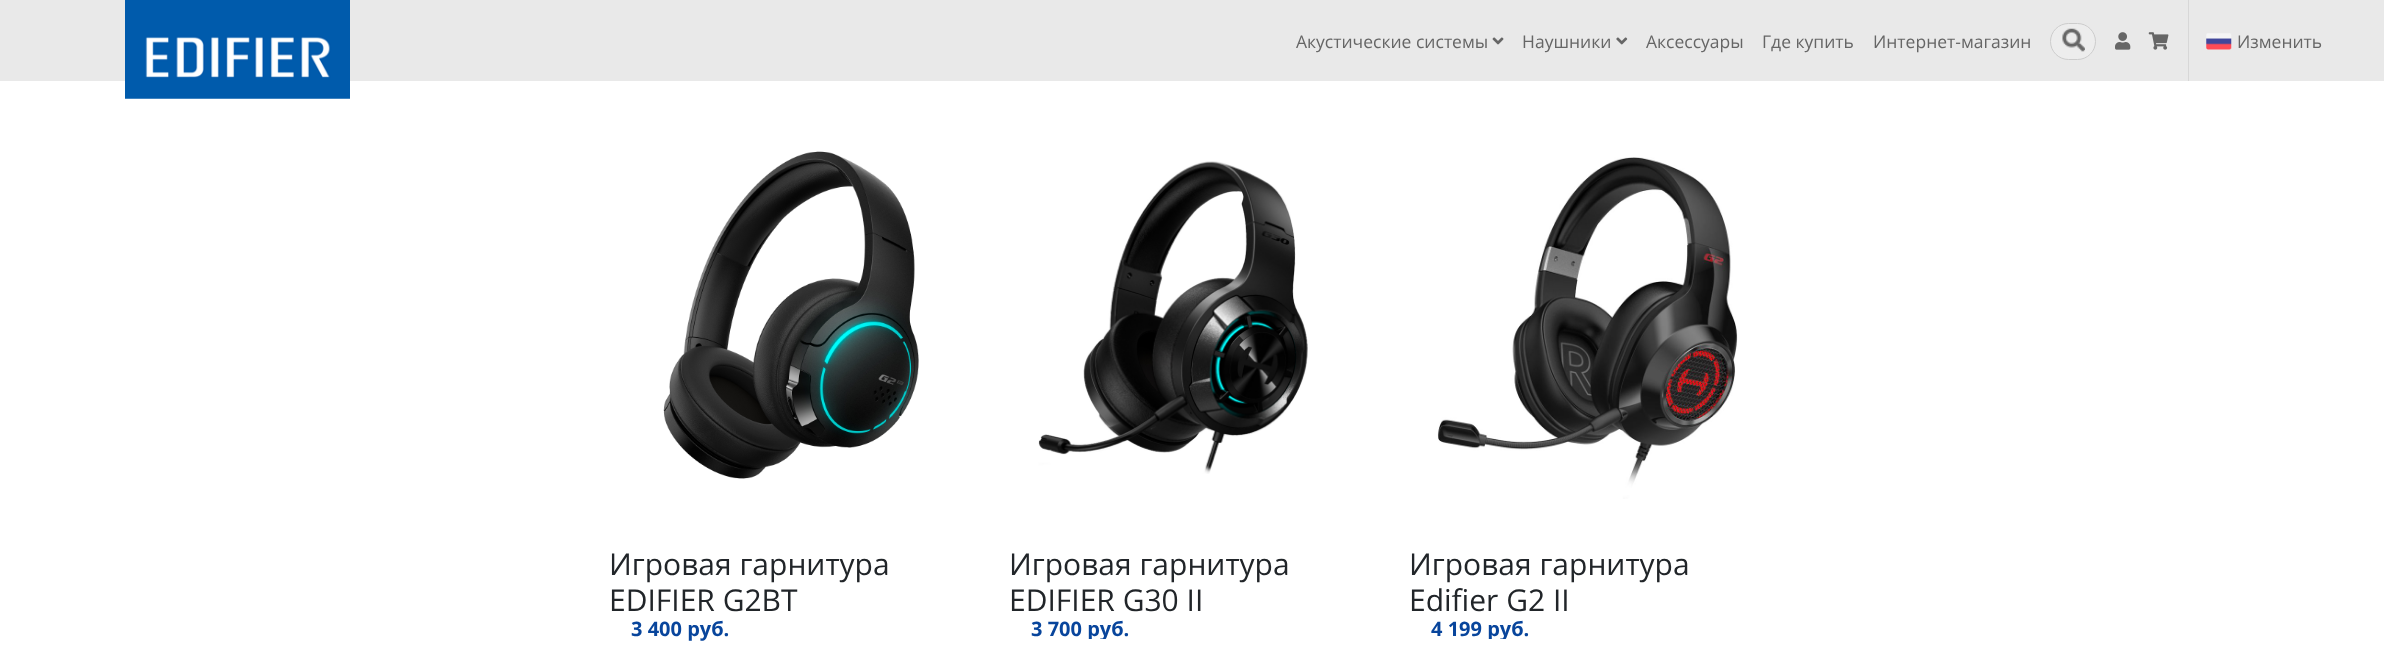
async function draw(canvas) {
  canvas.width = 2384;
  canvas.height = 657;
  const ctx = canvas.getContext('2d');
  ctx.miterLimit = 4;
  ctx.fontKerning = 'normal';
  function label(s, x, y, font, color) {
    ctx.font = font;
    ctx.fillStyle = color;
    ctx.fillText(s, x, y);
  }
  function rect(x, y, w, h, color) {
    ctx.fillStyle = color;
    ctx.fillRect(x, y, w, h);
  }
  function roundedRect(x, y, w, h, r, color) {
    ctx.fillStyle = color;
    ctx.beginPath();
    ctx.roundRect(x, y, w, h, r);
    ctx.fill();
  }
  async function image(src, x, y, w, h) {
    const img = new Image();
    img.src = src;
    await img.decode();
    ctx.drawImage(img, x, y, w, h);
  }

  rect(0, 0, 2384, 657, '#fff');
  rect(0, 0, 2384, 81, '#e9e9e9');
  await image('assets/img1.png', 125, 0, 225, 99);
  label('Акустические системы', 1296, 48, '17.5px Open Sans', '#666');
  await image('assets/img2.png', 1492, 37, 12, 8);
  label('Наушники', 1522, 48, '17.5px Open Sans', '#666');
  await image('assets/img3.png', 1616, 37, 12, 8);
  label('Аксессуары', 1646, 48, '17.5px Open Sans', '#666');
  label('Где купить', 1762, 48, '17.5px Open Sans', '#666');
  label('Интернет-магазин', 1873, 48, '17.5px Open Sans', '#666');
  roundedRect(2050, 23, 46, 37, 18.5, '#ededed');
  await image('assets/img4.png', 2062, 28, 23, 24);
  ctx.beginPath();
  ctx.roundRect(2050.5, 23.5, 45, 36, 18);
  ctx.strokeStyle = '#ccc';
  ctx.stroke();
  await image('assets/img5.png', 2115, 32, 16, 18);
  await image('assets/img6.png', 2148, 32, 21, 18);
  rect(2188, 0, 1, 81, '#d7d7d7');
  await image('assets/img7.png', 2206, 33, 26, 17);
  label('Изменить', 2237, 48, '17.5px Open Sans', '#666');
  await image('assets/img8.png', 663, 151, 256, 328);
  label('Игровая гарнитура', 609, 575, '30px Open Sans', '#212529');
  label('EDIFIER G2BT', 609, 611, '30px Open Sans', '#212529');
  label('3 400 руб.', 631, 636, 'bold 20px Open Sans', '#08459c');
  await image('assets/img9.png', 1038, 161, 270, 313);
  label('Игровая гарнитура', 1009, 575, '30px Open Sans', '#212529');
  label('EDIFIER G30 II', 1009, 611, '30px Open Sans', '#212529');
  label('3 700 руб.', 1031, 636, 'bold 20px Open Sans', '#08459c');
  await image('assets/img10.png', 1437, 157, 301, 342);
  label('Игровая гарнитура', 1409, 575, '30px Open Sans', '#212529');
  label('Edifier G2 II', 1409, 611, '30px Open Sans', '#212529');
  label('4 199 руб.', 1431, 636, 'bold 20px Open Sans', '#08459c');
  roundedRect(808, 639, 370, 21, 2.5, '#fff');
  roundedRect(1208, 639, 370, 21, 2.5, '#fff');
}

draw(document.querySelector('canvas'));
